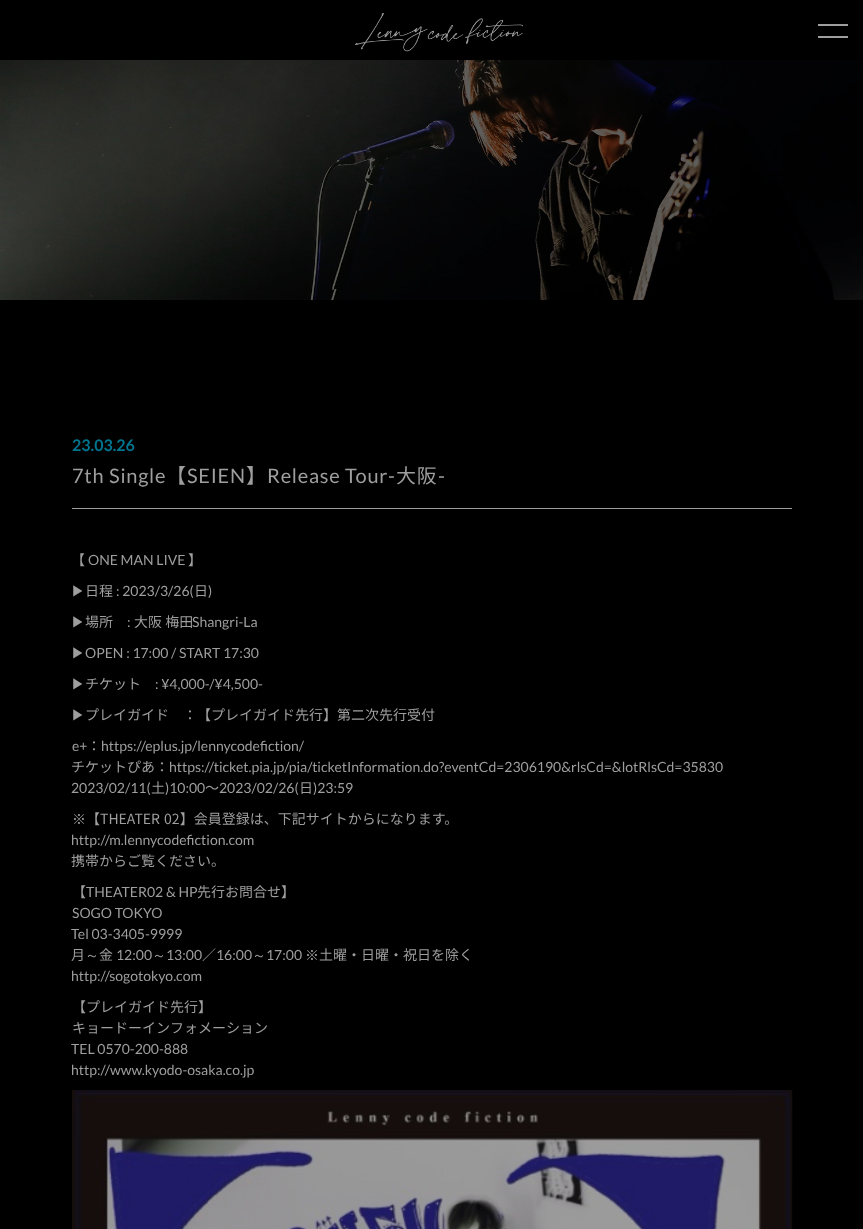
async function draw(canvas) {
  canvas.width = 863;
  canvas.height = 1229;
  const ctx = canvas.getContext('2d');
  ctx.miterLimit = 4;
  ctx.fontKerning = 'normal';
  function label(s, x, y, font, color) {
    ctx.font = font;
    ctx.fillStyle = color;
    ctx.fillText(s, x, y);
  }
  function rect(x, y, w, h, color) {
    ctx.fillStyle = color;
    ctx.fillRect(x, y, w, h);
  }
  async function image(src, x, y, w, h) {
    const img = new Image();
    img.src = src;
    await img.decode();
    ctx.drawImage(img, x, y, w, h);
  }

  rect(0, 0, 863, 1229, '#000');
  await image('assets/img1.png', 355, 13, 168, 39);
  rect(818, 24, 30, 2, '#9e9e9e');
  rect(818, 36, 30, 2, '#9e9e9e');
  await image('assets/img2.png', 0, 60, 863, 240);
  label('23.03.26', 72, 451, 'bold 16px Lato', '#00758f');
  ctx.letterSpacing = '0.75px';
  label('7th Single', 72, 483, '20px Lato', '#9e9e9e');
  label('【', 166, 483, '20px Noto Sans JP', '#9e9e9e');
  label('SEIEN', 187, 483, '20px Lato', '#9e9e9e');
  label('】', 246, 483, '20px Noto Sans JP', '#9e9e9e');
  label('Release Tour-', 267, 483, '20px Lato', '#9e9e9e');
  label('大阪', 396, 483, '20px Noto Sans JP', '#9e9e9e');
  label('-', 438, 483, '20px Lato', '#9e9e9e');
  rect(72, 508, 720, 1, '#9e9e9e');
  ctx.letterSpacing = '0px';
  label('【', 71, 565, '14px Noto Sans JP', '#9e9e9e');
  label('ONE MAN LIVE', 88, 565, '14px Lato', '#9e9e9e');
  label('】', 188, 565, '14px Noto Sans JP', '#9e9e9e');
  label('▶︎', 71, 596, '500 14px WenQuanYi Zen Hei', '#9e9e9e');
  label('日程', 85, 596, '14px Noto Sans JP', '#9e9e9e');
  label(': 2023/3/26(', 116, 596, '14px Lato', '#9e9e9e');
  label('日', 194, 596, '14px Noto Sans JP', '#9e9e9e');
  label(')', 208, 596, '14px Lato', '#9e9e9e');
  label('▶︎', 71, 627, '500 14px WenQuanYi Zen Hei', '#9e9e9e');
  label('場所', 85, 627, '14px Noto Sans JP', '#9e9e9e');
  label(':', 127, 627, '14px Lato', '#9e9e9e');
  label('大阪 梅田', 134, 627, '14px Noto Sans JP', '#9e9e9e');
  label('Shangri-La', 192, 627, '14px Lato', '#9e9e9e');
  label('▶︎', 71, 658, '500 14px WenQuanYi Zen Hei', '#9e9e9e');
  label('OPEN : 17:00 / START 17:30', 85, 658, '14px Lato', '#9e9e9e');
  label('▶︎', 71, 689, '500 14px WenQuanYi Zen Hei', '#9e9e9e');
  label('チケット', 85, 689, '14px Noto Sans JP', '#9e9e9e');
  label(': ¥4,000-/¥4,500-', 155, 689, '14px Lato', '#9e9e9e');
  label('▶︎', 71, 720, '500 14px WenQuanYi Zen Hei', '#9e9e9e');
  label('プレイガイド　：【プレイガイド先行】第二次先行受付', 85, 720, '14px Noto Sans JP', '#9e9e9e');
  label('e+', 72, 751, '14px Lato', '#9e9e9e');
  label('：', 87, 751, '14px Noto Sans JP', '#9e9e9e');
  label('https://eplus.jp/lennycodefiction/', 101, 751, '14px Lato', '#9e9e9e');
  label('チケットぴあ：', 71, 772, '14px Noto Sans JP', '#9e9e9e');
  label('https://ticket.pia.jp/pia/ticketInformation.do?eventCd=2306190&rlsCd=&lotRlsCd=35830', 169, 772, '14px Lato', '#9e9e9e');
  label('2023/02/11(', 71, 793, '14px Lato', '#9e9e9e');
  label('土', 151, 793, '14px Noto Sans JP', '#9e9e9e');
  label(')10:00', 165, 793, '14px Lato', '#9e9e9e');
  label('〜', 205, 793, '14px Noto Sans JP', '#9e9e9e');
  label('2023/02/26(', 219, 793, '14px Lato', '#9e9e9e');
  label('日', 299, 793, '14px Noto Sans JP', '#9e9e9e');
  label(')23:59', 313, 793, '14px Lato', '#9e9e9e');
  label('※', 72, 824, '500 14px WenQuanYi Zen Hei', '#9e9e9e');
  ctx.wordSpacing = '1px';
  label('【THEATER 02】会員登録は、下記サイトからになります。', 86, 824, '14px Noto Sans JP', '#9e9e9e');
  ctx.wordSpacing = '0px';
  label('http://m.lennycodefiction.com', 71, 845, '14px Lato', '#9e9e9e');
  label('携帯からご覧ください。', 71, 866, '14px Noto Sans JP', '#9e9e9e');
  label('【', 72, 897, '14px Noto Sans JP', '#9e9e9e');
  label('THEATER02 & HP', 86, 897, '14px Lato', '#9e9e9e');
  label('先行お問合せ】', 197, 897, '14px Noto Sans JP', '#9e9e9e');
  label('SOGO TOKYO', 72, 918, '14px Lato', '#9e9e9e');
  label('Tel 03-3405-9999', 71, 939, '14px Lato', '#9e9e9e');
  label('月', 71, 960, '14px Noto Sans JP', '#9e9e9e');
  label('～', 85, 960, '500 14px WenQuanYi Zen Hei', '#9e9e9e');
  label('金', 99, 960, '14px Noto Sans JP', '#9e9e9e');
  label('12:00', 116, 960, '14px Lato', '#9e9e9e');
  label('～', 152, 960, '500 14px WenQuanYi Zen Hei', '#9e9e9e');
  label('13:00', 166, 960, '14px Lato', '#9e9e9e');
  label('／', 202, 960, '14px Noto Sans JP', '#9e9e9e');
  label('16:00', 216, 960, '14px Lato', '#9e9e9e');
  label('～', 252, 960, '500 14px WenQuanYi Zen Hei', '#9e9e9e');
  label('17:00', 266, 960, '14px Lato', '#9e9e9e');
  label('※', 305, 960, '500 14px WenQuanYi Zen Hei', '#9e9e9e');
  label('土曜・日曜・祝日を除く', 319, 960, '14px Noto Sans JP', '#9e9e9e');
  label('http://sogotokyo.com', 71, 981, '14px Lato', '#9e9e9e');
  label('【プレイガイド先行】', 72, 1012, '14px Noto Sans JP', '#9e9e9e');
  label('キョードーインフォメーション', 72, 1033, '14px Noto Sans JP', '#9e9e9e');
  label('TEL 0570-200-888', 71, 1054, '14px Lato', '#9e9e9e');
  label('http://www.kyodo-osaka.co.jp', 71, 1075, '14px Lato', '#9e9e9e');
  await image('assets/img3.png', 72, 1090, 721, 139);
}

draw(document.querySelector('canvas'));
